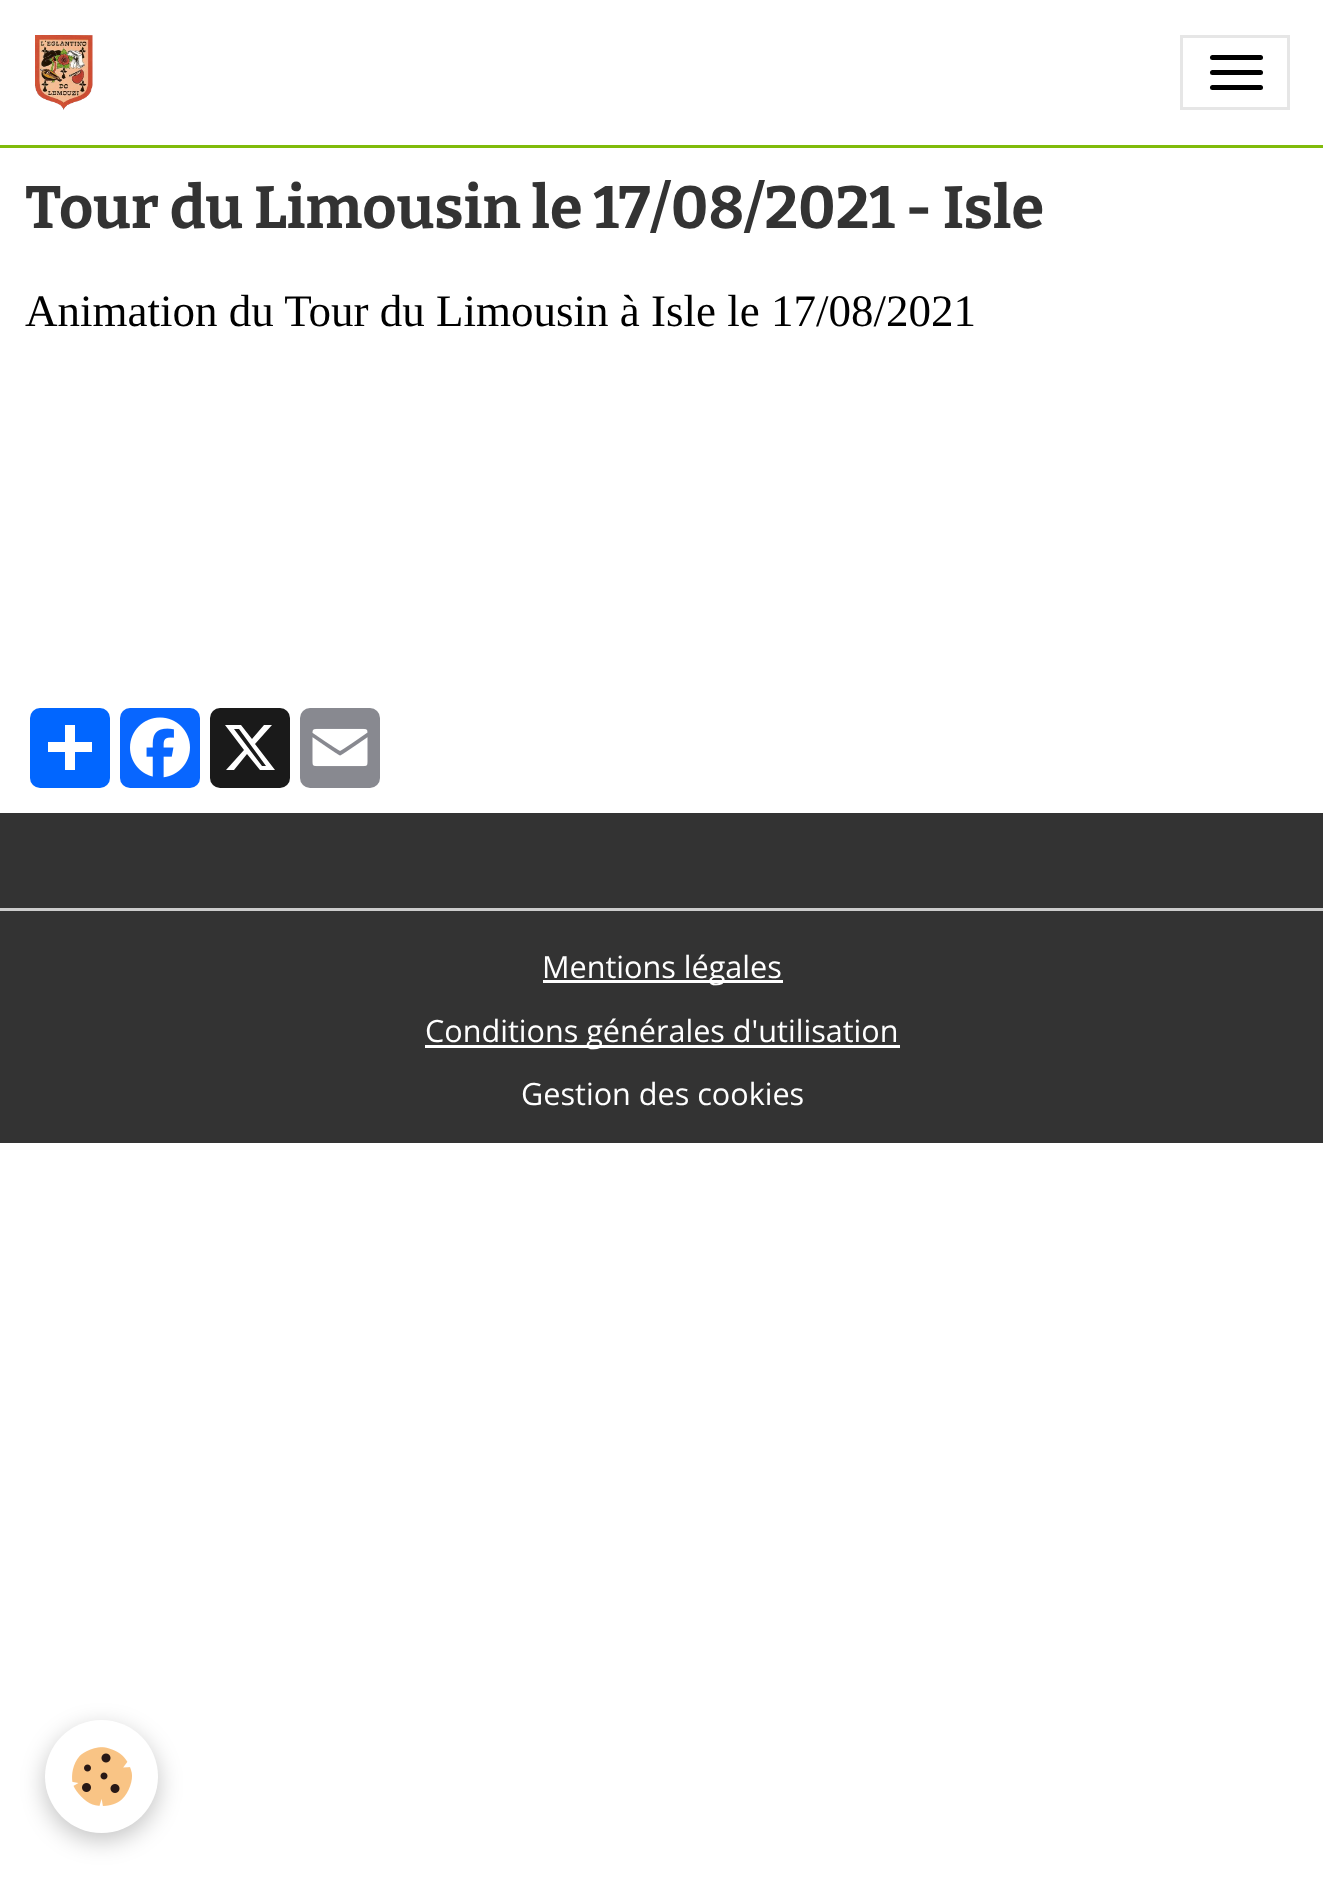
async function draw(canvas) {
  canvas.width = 1323;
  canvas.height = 1877;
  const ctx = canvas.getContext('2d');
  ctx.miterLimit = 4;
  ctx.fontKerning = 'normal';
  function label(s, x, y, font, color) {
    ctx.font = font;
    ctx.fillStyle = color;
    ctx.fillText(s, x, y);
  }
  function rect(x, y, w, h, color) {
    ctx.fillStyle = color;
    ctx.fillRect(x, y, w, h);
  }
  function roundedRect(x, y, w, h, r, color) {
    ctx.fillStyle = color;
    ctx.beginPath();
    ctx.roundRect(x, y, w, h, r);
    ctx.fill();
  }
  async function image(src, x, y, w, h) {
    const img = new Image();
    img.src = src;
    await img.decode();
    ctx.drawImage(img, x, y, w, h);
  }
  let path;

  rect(0, 0, 1323, 1877, '#fff');
  rect(0, 145, 1323, 3, '#80bb0b');
  await image('assets/img1.png', 35, 35, 58, 75);
  ctx.strokeStyle = '#e6e6e6';
  ctx.lineWidth = 3;
  ctx.strokeRect(1181.5, 36.5, 107, 72);
  roundedRect(1210, 55, 53, 5, 2.5, '#000');
  roundedRect(1210, 70, 53, 5, 2.5, '#000');
  roundedRect(1210, 85, 53, 5, 2.5, '#000');
  label('Tour du Limousin le 17/08/2021 - Isle', 25, 228, 'bold 59.5px Bitter', '#333');
  label('Animation du Tour du Limousin à Isle le 17/08/2021', 25, 326, '45px Liberation Serif', '#000');
  roundedRect(30, 708, 80, 80, 10, '#0166ff');
  rect(65, 725, 10, 45, '#fff');
  rect(48, 742, 44, 10, '#fff');
  roundedRect(120, 708, 80, 80, 10, '#0866ff');
  await image('assets/img2.png', 130, 717, 60, 61);
  roundedRect(210, 708, 80, 80, 10, '#1a1a1a');
  ctx.fillStyle = '#fff';
  path = new Path2D('M264 725H272L255 744L275 770H260L247 754L234 770H226L244 750L225 725H241L252 739ZM262 766H266L239 729H234Z');
  ctx.fill(path);
  roundedRect(300, 708, 80, 80, 10, '#888990');
  await image('assets/img3.png', 312, 728, 56, 39);
  rect(0, 813, 1323, 330, '#333');
  rect(0, 908, 1323, 3, '#ccc');
  rect(543, 980, 240, 3, '#fff');
  label('Mentions légales', 542, 978, '30.6px Open Sans', '#fff');
  rect(425, 1045, 475, 3, '#fff');
  label('Conditions générales d\'utilisation', 425, 1042, '30.6px Open Sans', '#fff');
  label('Gestion des cookies', 521, 1105, '30.6px Open Sans', '#fff');
  ctx.fillStyle = '#0000003d';
  ctx.filter = 'blur(12.5px)';
  ctx.beginPath();
  ctx.roundRect(45, 1728, 113, 112, 56);
  ctx.fill();
  ctx.filter = 'none';
  ctx.fillStyle = '#fff';
  ctx.beginPath();
  ctx.arc(101.5, 1776.5, 56.5, 0, 2 * Math.PI);
  ctx.fill();
  await image('assets/img4.png', 72, 1747, 60, 59);
}

draw(document.querySelector('canvas'));
